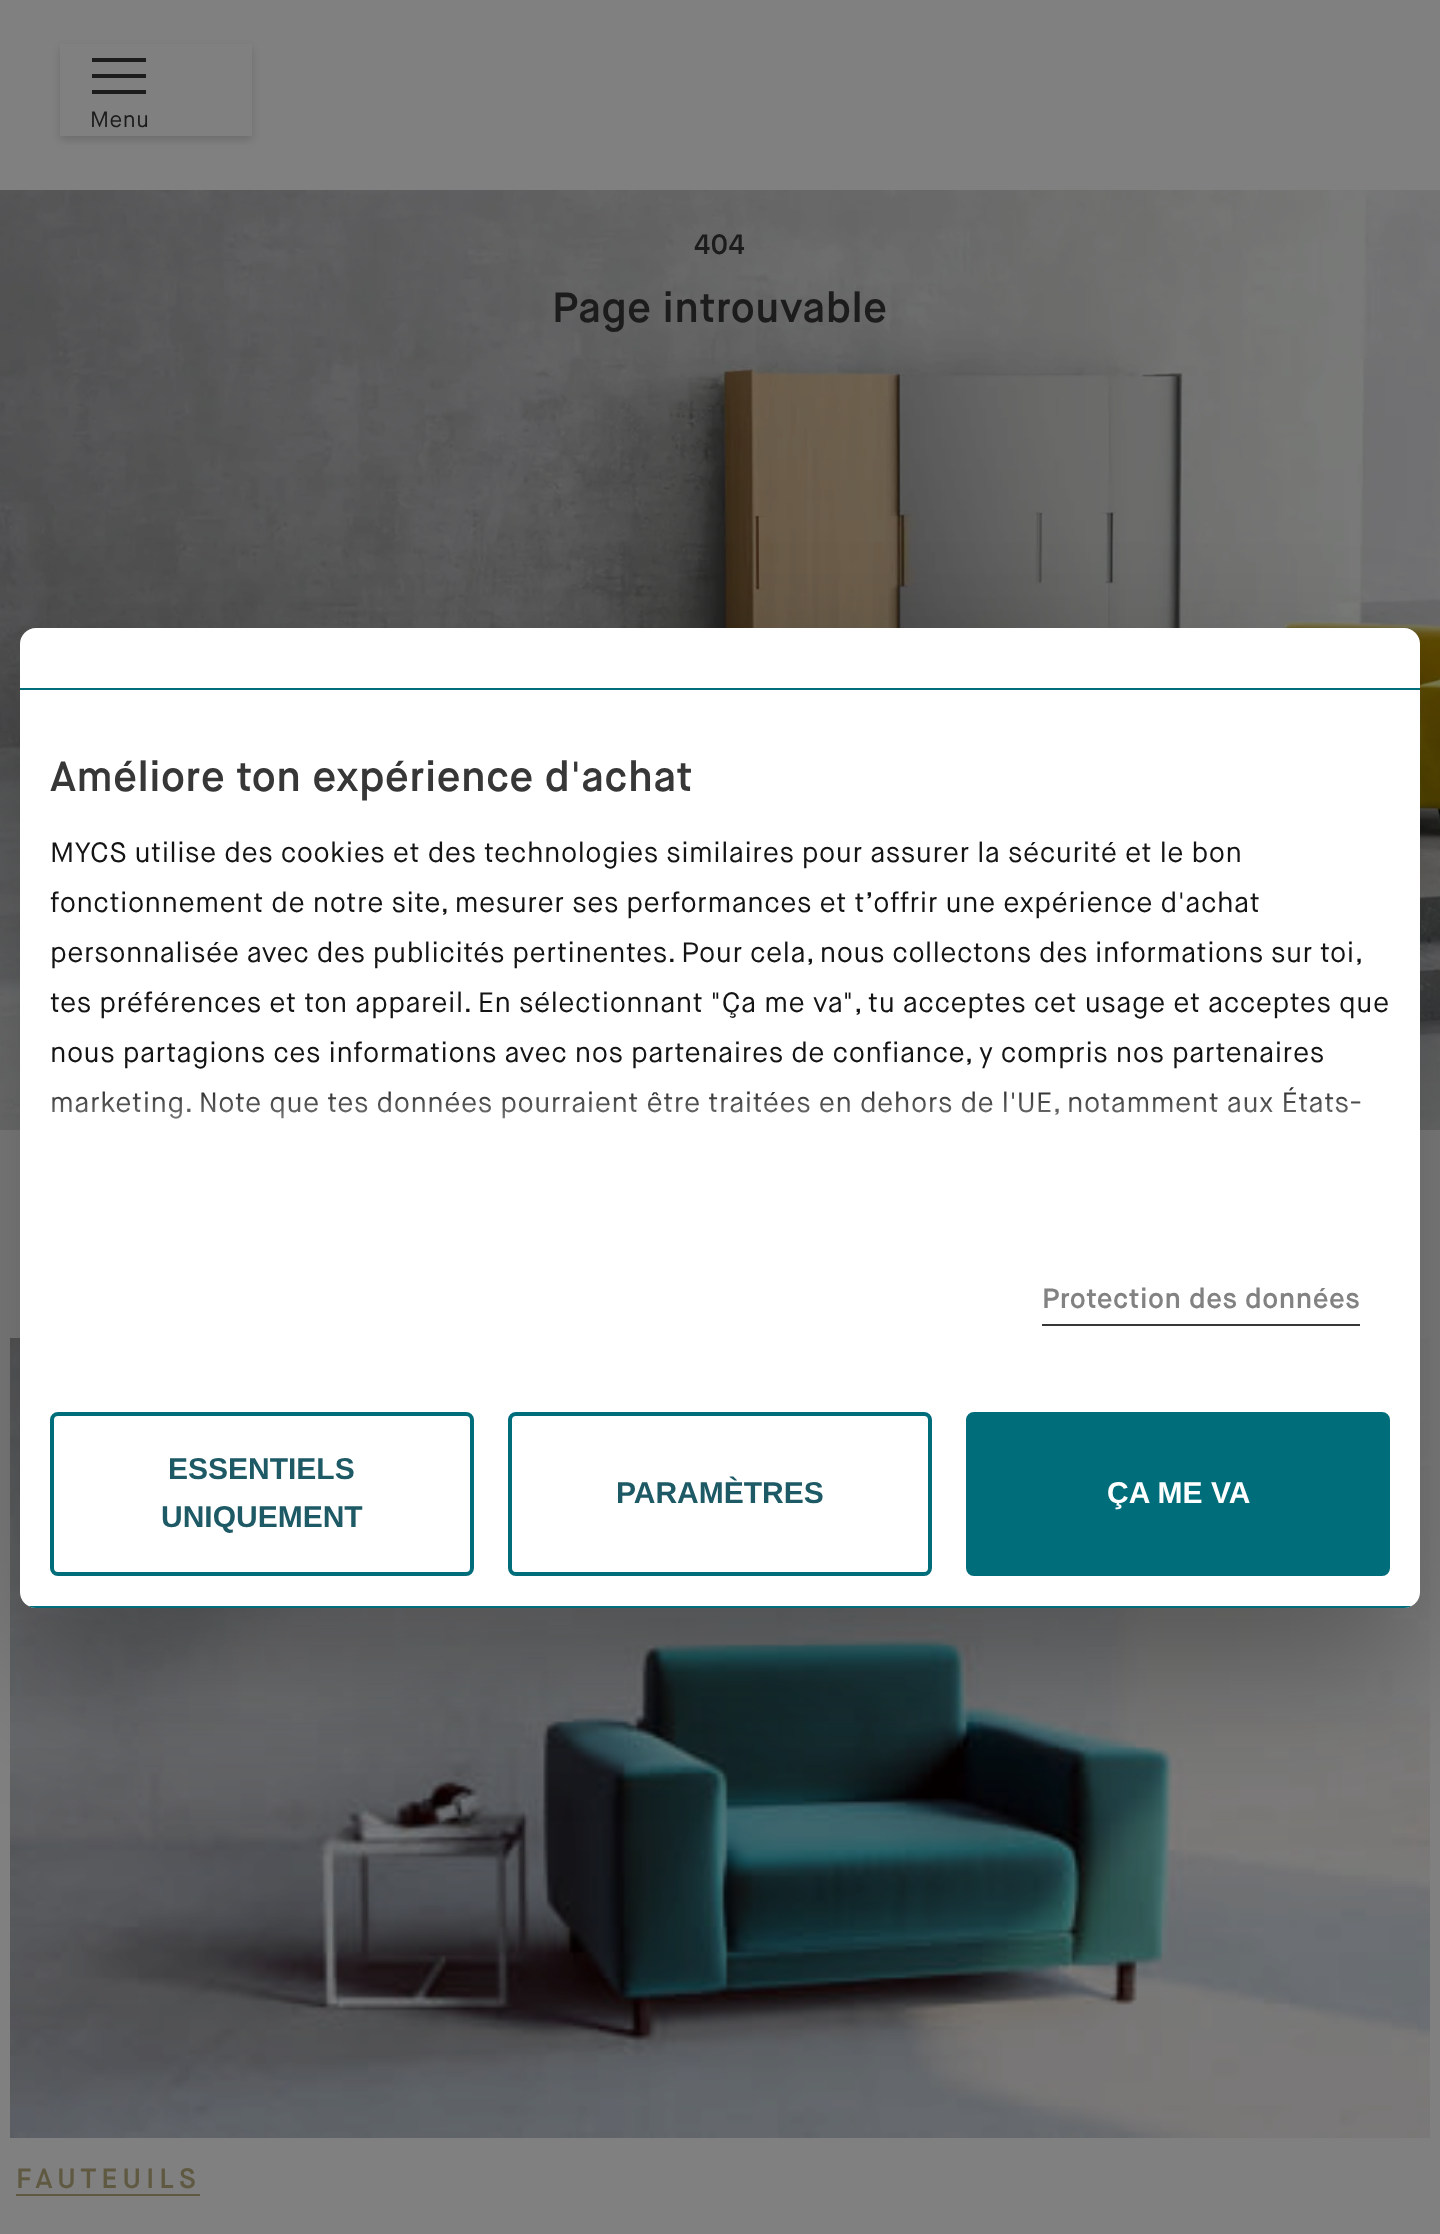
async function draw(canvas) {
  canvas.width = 1440;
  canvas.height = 2234;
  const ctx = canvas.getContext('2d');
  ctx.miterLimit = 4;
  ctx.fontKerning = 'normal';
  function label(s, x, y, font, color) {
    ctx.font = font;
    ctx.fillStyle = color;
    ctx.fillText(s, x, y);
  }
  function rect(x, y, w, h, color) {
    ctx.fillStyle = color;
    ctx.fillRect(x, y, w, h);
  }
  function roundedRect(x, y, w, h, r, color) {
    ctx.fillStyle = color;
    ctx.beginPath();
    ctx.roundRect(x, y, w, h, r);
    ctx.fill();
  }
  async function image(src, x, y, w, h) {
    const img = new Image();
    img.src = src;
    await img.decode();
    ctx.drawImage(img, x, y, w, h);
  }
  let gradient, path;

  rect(0, 0, 1440, 2234, '#808080');
  ctx.save();
  path = new Path2D('M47 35H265V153H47ZM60 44H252V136H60Z');
  ctx.clip(path, 'evenodd');
  ctx.fillStyle = '#00000026';
  ctx.filter = 'blur(4px)';
  ctx.beginPath();
  ctx.rect(60, 48, 192, 92);
  ctx.fill();
  ctx.filter = 'none';
  ctx.restore();
  rect(92, 58, 54, 4, '#1c1c1c');
  rect(92, 74, 54, 4, '#1c1c1c');
  rect(92, 90, 54, 4, '#1c1c1c');
  ctx.letterSpacing = '0.5px';
  label('Menu', 90, 127, '22px Maison Neue', '#1c1c1c');
  await image('assets/img1.png', 0, 190, 1440, 940);
  label('404', 694, 254, '600 28px Maison Neue', '#1c1c1c');
  label('Page introuvable', 552, 322, '600 42px Maison Neue', '#1c1c1c');
  await image('assets/img2.png', 10, 1338, 1420, 800);
  ctx.letterSpacing = '5px';
  label('FAUTEUILS', 16, 2188, '600 28px Maison Neue', '#605942');
  rect(16, 2194, 184, 2, '#605942');
  ctx.fillStyle = '#0000004d';
  ctx.filter = 'blur(68px)';
  ctx.beginPath();
  ctx.roundRect(20, 692, 1400, 980, 16);
  ctx.fill();
  ctx.filter = 'none';
  roundedRect(20, 628, 1400, 980, 16, '#fff');
  rect(20, 688, 1400, 2, '#006d7a');
  ctx.letterSpacing = '0.5px';
  label('Améliore ton expérience d\'achat', 50, 791, '600 42px Maison Neue', '#373737');
  label('MYCS utilise des cookies et des technologies similaires pour assurer la sécurité et le bon', 50, 862, '28px Maison Neue', '#141414');
  label('fonctionnement de notre site, mesurer ses performances et t’offrir une expérience d\'achat', 50, 912, '28px Maison Neue', '#141414');
  ctx.wordSpacing = '-0.25px';
  label('personnalisée avec des publicités pertinentes. Pour cela, nous collectons des informations sur toi,', 50, 962, '28px Maison Neue', '#141414');
  ctx.wordSpacing = '0px';
  label('tes préférences et ton appareil. En sélectionnant "Ça me va", tu acceptes cet usage et acceptes que', 50, 1012, '28px Maison Neue', '#141414');
  label('nous partagions ces informations avec nos partenaires de confiance, y compris nos partenaires', 50, 1062, '28px Maison Neue', '#141414');
  label('marketing. Note que tes données pourraient être traitées en dehors de l\'UE, notamment aux États-', 50, 1112, '28px Maison Neue', '#141414');
  gradient = ctx.createLinearGradient(707, 1230, 707, 1080);
  gradient.addColorStop(0, '#fff');
  gradient.addColorStop(0.5, '#ffffffcc');
  gradient.addColorStop(1, '#ffffff00');
  ctx.fillStyle = gradient;
  ctx.fillRect(52, 1087, 1309, 32);
  rect(1042, 1324, 318, 2, '#373737');
  label('Protection des données', 1042, 1308, '600 28px Maison Neue', '#838283');
  ctx.save();
  ctx.beginPath();
  ctx.roundRect(20, 628, 1400, 980, 16);
  ctx.clip();
  rect(20, 1606, 1400, 2, '#006d7a');
  ctx.restore();
  ctx.beginPath();
  ctx.roundRect(52, 1414, 420, 160, 6);
  ctx.strokeStyle = '#006d7a';
  ctx.lineWidth = 4;
  ctx.stroke();
  ctx.letterSpacing = '0px';
  label('ESSENTIELS', 168, 1479, 'bold 30px Liberation Sans', '#1d5a65');
  label('UNIQUEMENT', 161, 1527, 'bold 30px Liberation Sans', '#1d5a65');
  ctx.beginPath();
  ctx.roundRect(510, 1414, 420, 160, 6);
  ctx.stroke();
  label('PARAMÈTRES', 616, 1503, 'bold 30px Liberation Sans', '#1d5a65');
  ctx.fillStyle = '#006d7a';
  ctx.beginPath();
  ctx.roundRect(968, 1414, 420, 160, 6);
  ctx.fill();
  ctx.stroke();
  label('ÇA ME VA', 1107, 1503, 'bold 30px Liberation Sans', '#fff');
}

draw(document.querySelector('canvas'));
